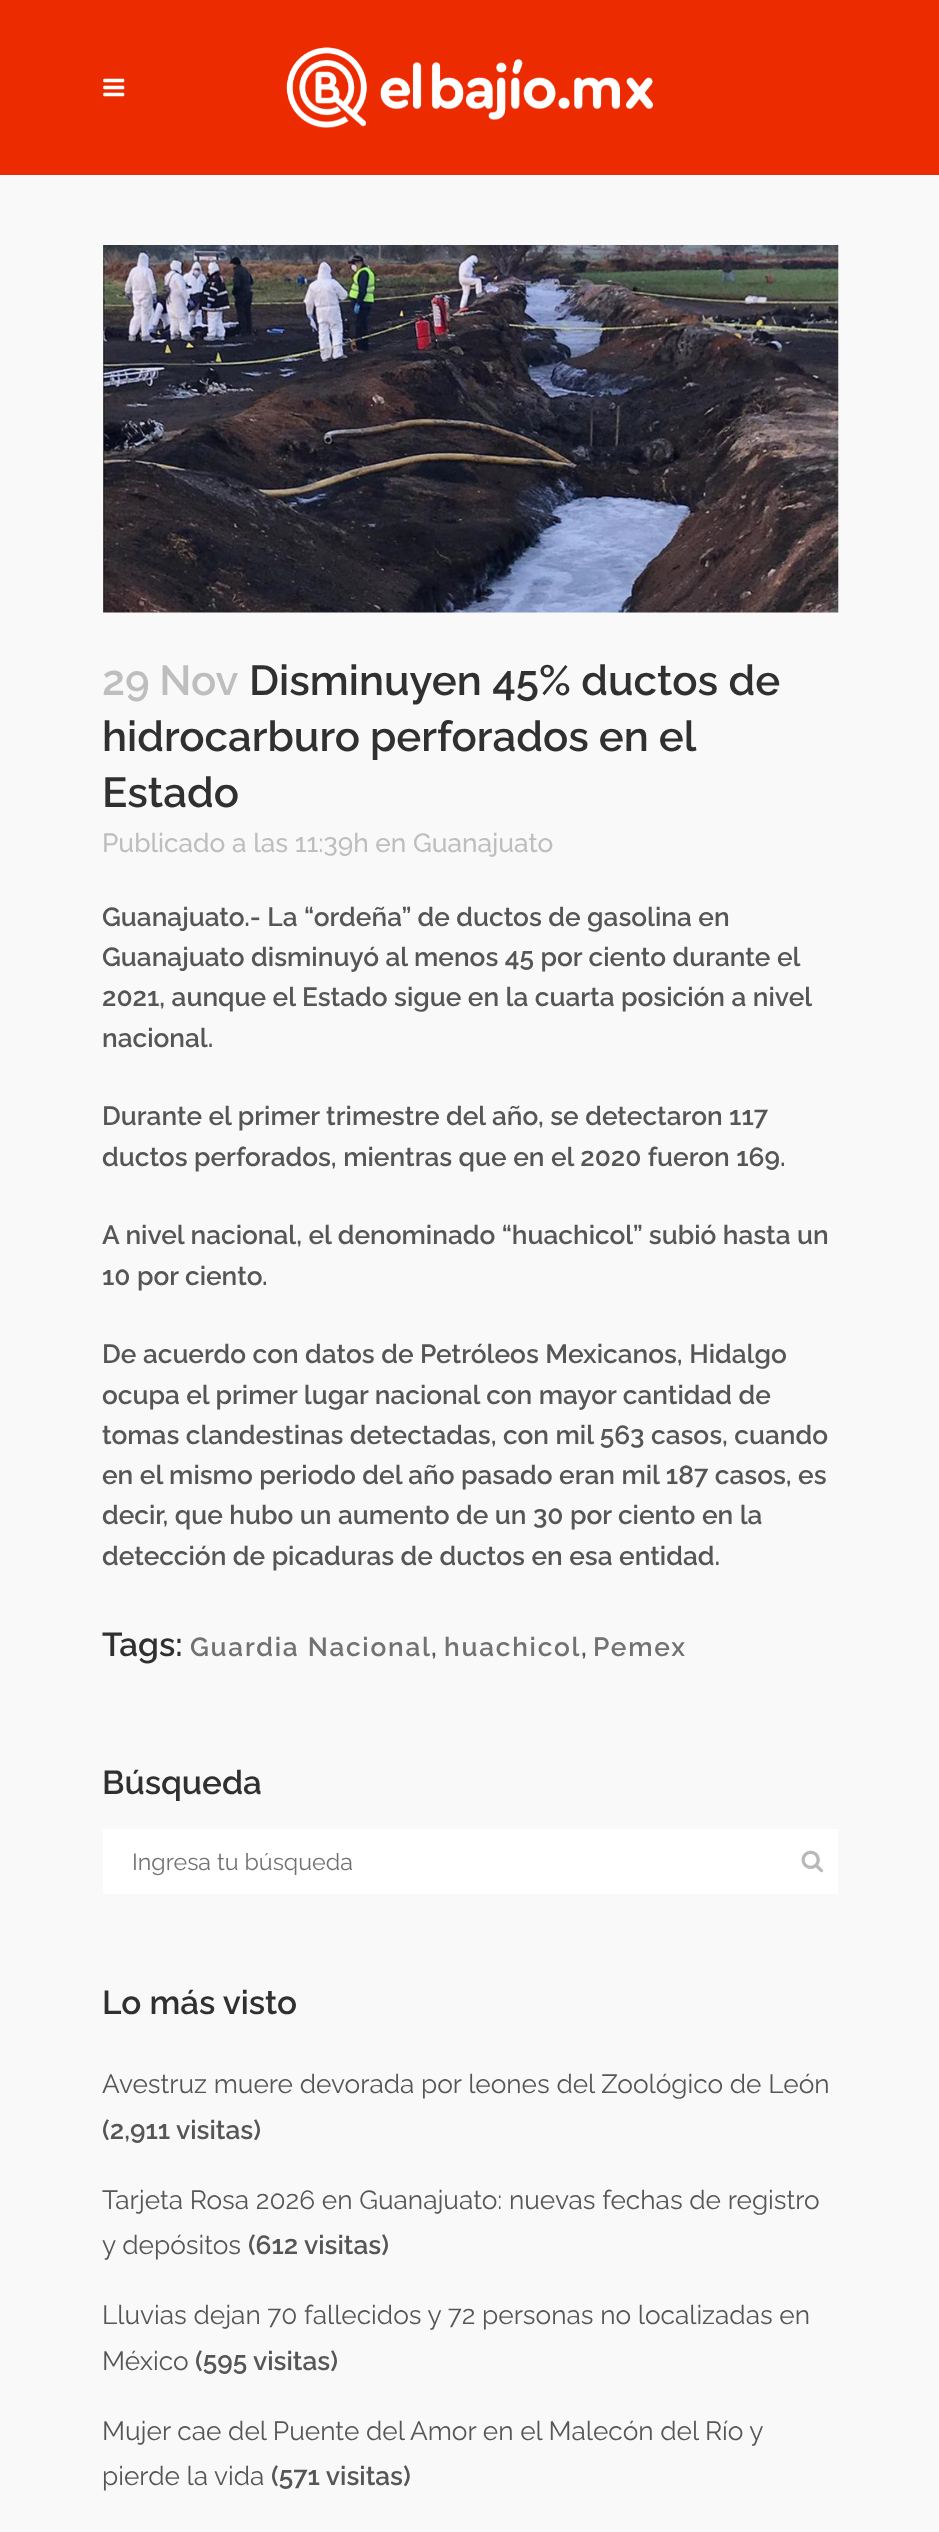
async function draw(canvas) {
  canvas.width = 939;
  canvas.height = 2532;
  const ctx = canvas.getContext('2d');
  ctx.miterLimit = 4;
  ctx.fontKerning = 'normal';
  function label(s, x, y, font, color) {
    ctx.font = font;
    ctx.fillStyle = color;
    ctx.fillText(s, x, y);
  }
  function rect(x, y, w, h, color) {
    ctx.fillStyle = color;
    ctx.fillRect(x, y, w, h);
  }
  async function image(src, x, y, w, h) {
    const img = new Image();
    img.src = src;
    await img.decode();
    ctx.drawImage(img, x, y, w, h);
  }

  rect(0, 0, 939, 2532, '#f9f9f9');
  rect(0, 0, 939, 175, '#ec2b00');
  await image('assets/img1.png', 103, 78, 22, 19);
  await image('assets/img2.png', 286, 47, 368, 81);
  await image('assets/img3.png', 103, 245, 736, 368);
  ctx.wordSpacing = '-1px';
  label('29 Nov', 102, 695, '600 42px Raleway', '#bebebe');
  ctx.wordSpacing = '0px';
  label('Disminuyen 45% ductos de', 249, 695, '600 42px Raleway', '#303030');
  ctx.wordSpacing = '-0.5px';
  label('hidrocarburo perforados en el', 102, 751, '600 42px Raleway', '#303030');
  ctx.wordSpacing = '0px';
  label('Estado', 102, 807, '600 42px Raleway', '#303030');
  label('Publicado a las 11:39h en Guanajuato', 102, 852, '500 26.25px Raleway', '#bebebe');
  label('Guanajuato.- La “ordeña” de ductos de gasolina en', 102, 926, '600 26.25px Raleway', '#565656');
  label('Guanajuato disminuyó al menos 45 por ciento durante el', 102, 966, '600 26.25px Raleway', '#565656');
  label('2021, aunque el Estado sigue en la cuarta posición a nivel', 102, 1006, '600 26.25px Raleway', '#565656');
  label('nacional.', 102, 1047, '600 26.25px Raleway', '#565656');
  label('Durante el primer trimestre del año, se detectaron 117', 102, 1125, '600 26.25px Raleway', '#565656');
  label('ductos perforados, mientras que en el 2020 fueron 169.', 102, 1166, '600 26.25px Raleway', '#565656');
  label('A nivel nacional, el denominado “huachicol” subió hasta un', 102, 1244, '600 26.25px Raleway', '#565656');
  label('10 por ciento.', 102, 1285, '600 26.25px Raleway', '#565656');
  label('De acuerdo con datos de Petróleos Mexicanos, Hidalgo', 102, 1363, '600 26.25px Raleway', '#565656');
  label('ocupa el primer lugar nacional con mayor cantidad de', 102, 1404, '600 26.25px Raleway', '#565656');
  label('tomas clandestinas detectadas, con mil 563 casos, cuando', 102, 1444, '600 26.25px Raleway', '#565656');
  label('en el mismo periodo del año pasado eran mil 187 casos, es', 102, 1484, '600 26.25px Raleway', '#565656');
  label('decir, que hubo un aumento de un 30 por ciento en la', 102, 1524, '600 26.25px Raleway', '#565656');
  label('detección de picaduras de ductos en esa entidad.', 102, 1565, '600 26.25px Raleway', '#565656');
  label('Tags:', 102, 1656, '600 33.25px Raleway', '#303030');
  ctx.letterSpacing = '1.75px';
  label('Guardia Nacional', 190, 1656, '600 26.25px Raleway', '#727272');
  ctx.letterSpacing = '0px';
  label(',', 431, 1656, '600 26.25px Raleway', '#565656');
  ctx.letterSpacing = '1.75px';
  label('huachicol', 444, 1656, '600 26.25px Raleway', '#727272');
  ctx.letterSpacing = '0px';
  label(',', 581, 1656, '600 26.25px Raleway', '#565656');
  ctx.letterSpacing = '1.75px';
  label('Pemex', 593, 1656, '600 26.25px Raleway', '#727272');
  ctx.letterSpacing = '0px';
  label('Búsqueda', 102, 1794, '600 33.25px Raleway', '#303030');
  rect(103, 1829, 735, 65, '#fff');
  label('Ingresa tu búsqueda', 132, 1870, '23.25px Raleway', '#727272');
  await image('assets/img4.png', 801, 1850, 23, 23);
  label('Lo más visto', 102, 2014, '600 33.25px Raleway', '#303030');
  label('Avestruz muere devorada por leones del Zoológico de León', 102, 2093, '26.25px Raleway', '#565656');
  label('(2,911 visitas)', 102, 2139, '600 26.25px Raleway', '#565656');
  label('Tarjeta Rosa 2026 en Guanajuato: nuevas fechas de registro', 102, 2209, '26.25px Raleway', '#565656');
  label('y depósitos', 102, 2254, '26.25px Raleway', '#565656');
  label('(612 visitas)', 248, 2254, '600 26.25px Raleway', '#565656');
  label('Lluvias dejan 70 fallecidos y 72 personas no localizadas en', 102, 2324, '26.25px Raleway', '#565656');
  label('México', 102, 2370, '26.25px Raleway', '#565656');
  label('(595 visitas)', 195, 2370, '600 26.25px Raleway', '#565656');
  label('Mujer cae del Puente del Amor en el Malecón del Río y', 102, 2440, '26.25px Raleway', '#565656');
  label('pierde la vida', 102, 2485, '26.25px Raleway', '#565656');
  label('(571 visitas)', 271, 2485, '600 26.25px Raleway', '#565656');
}

draw(document.querySelector('canvas'));
